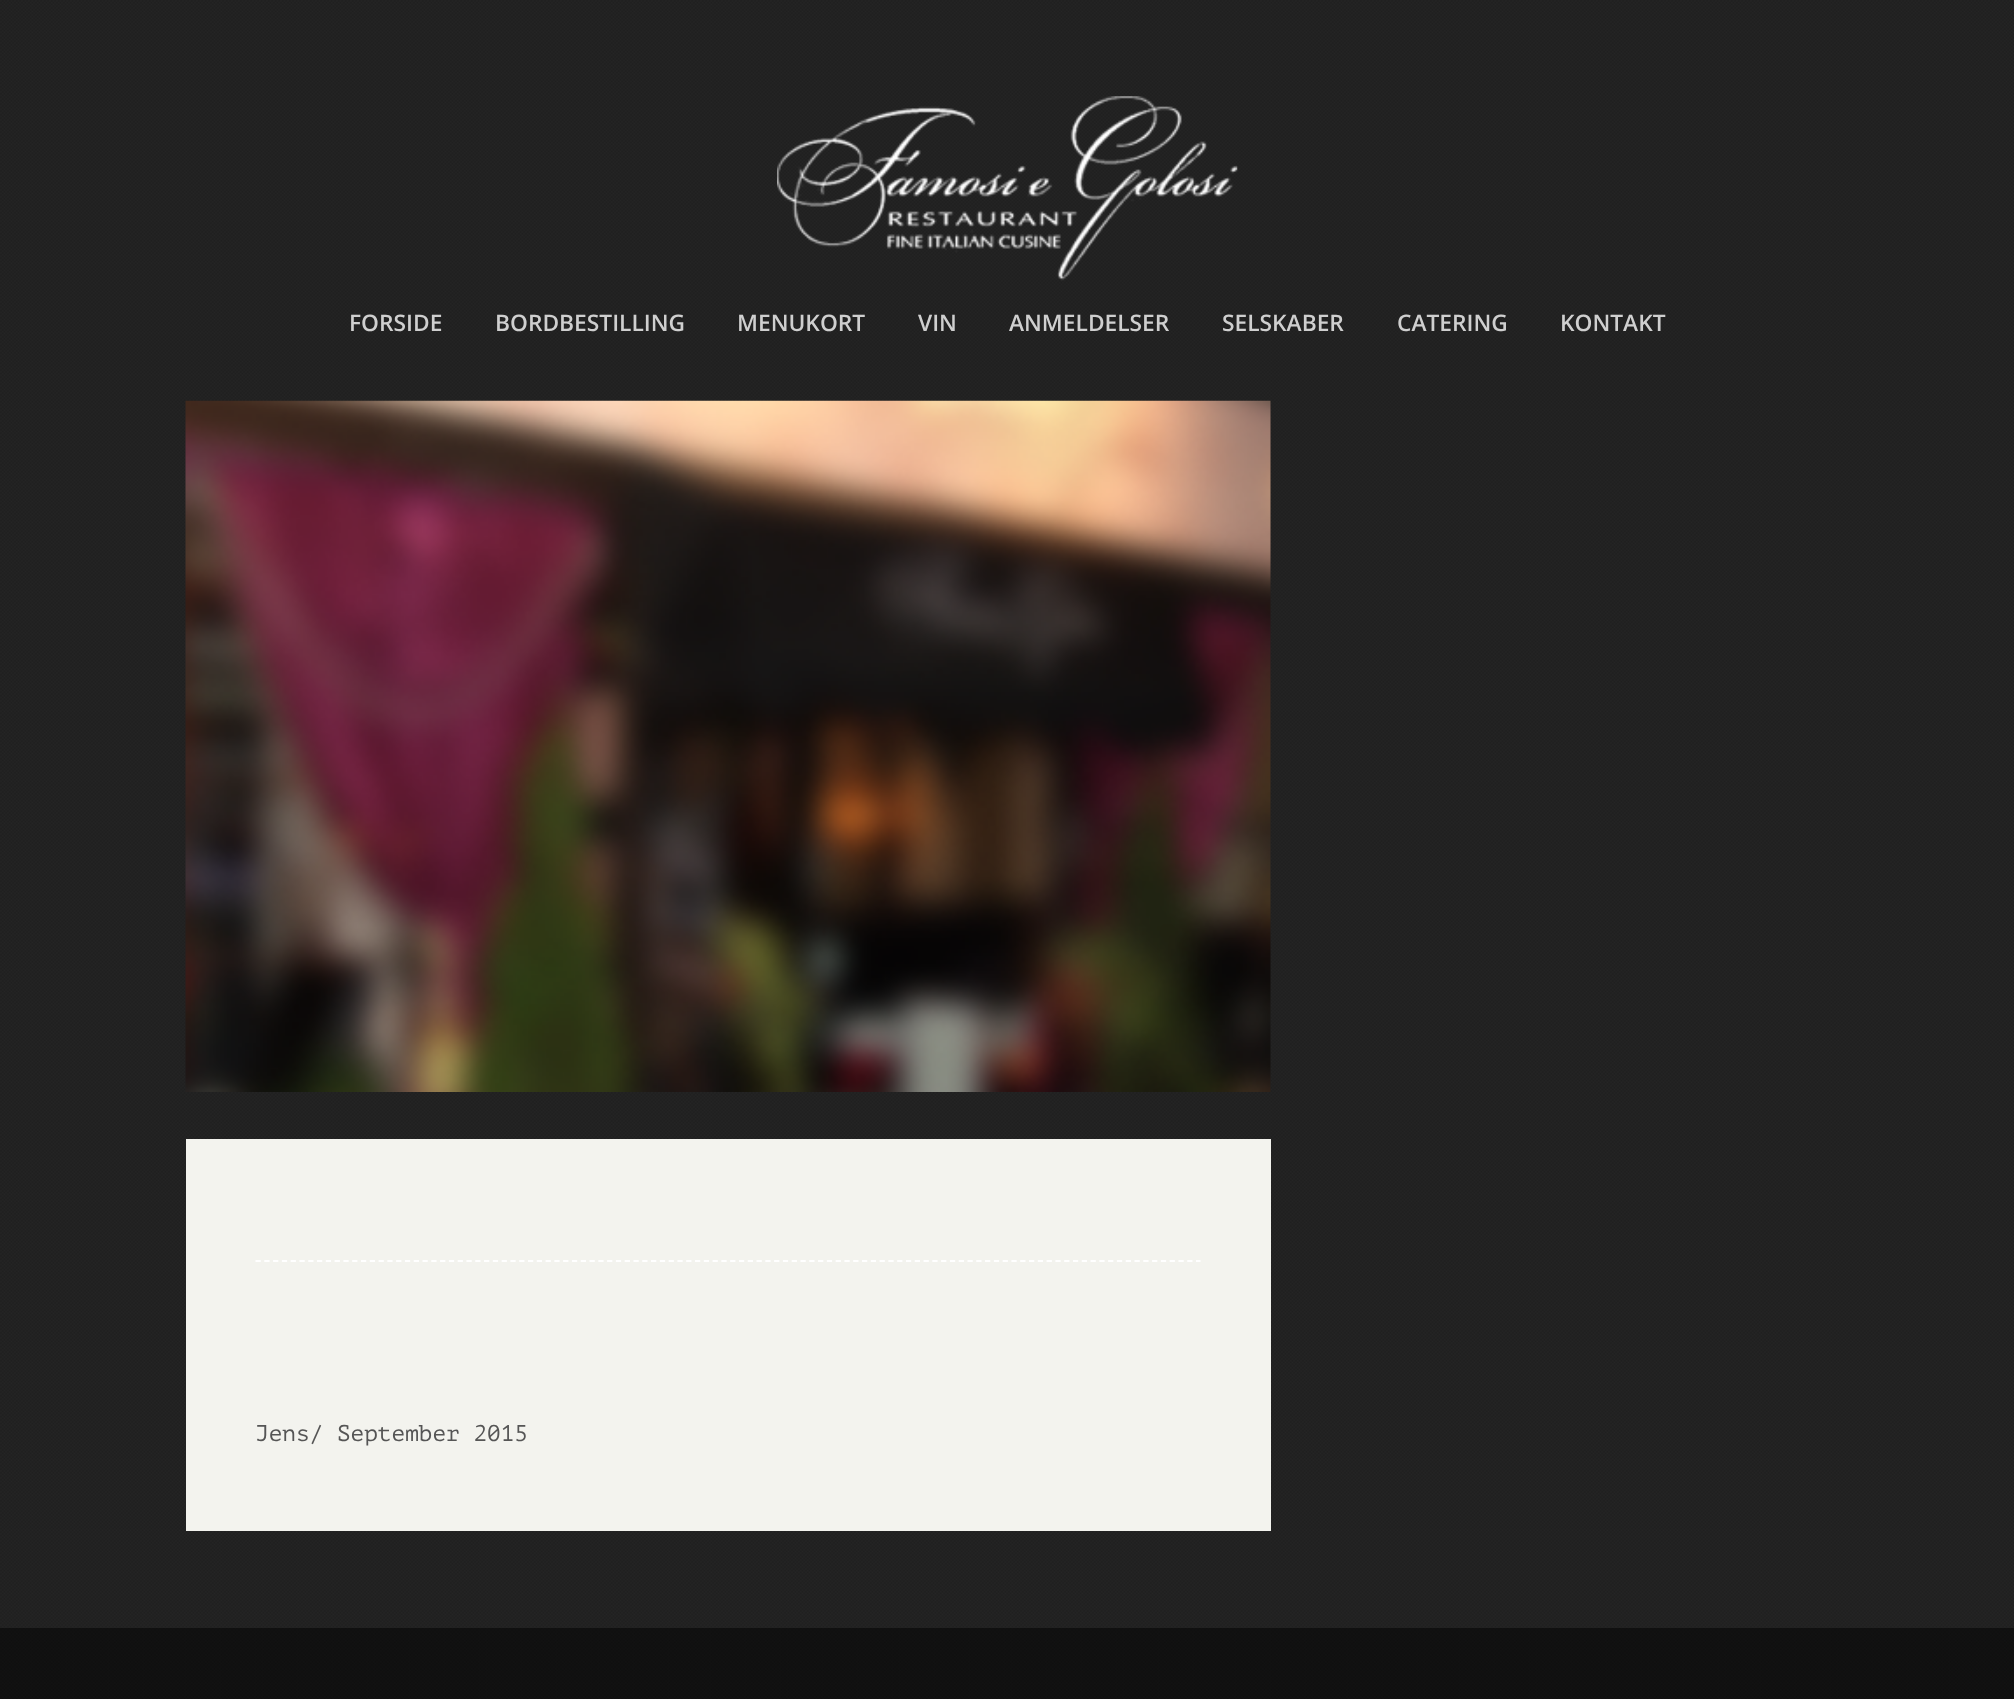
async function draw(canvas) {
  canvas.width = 2014;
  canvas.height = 1699;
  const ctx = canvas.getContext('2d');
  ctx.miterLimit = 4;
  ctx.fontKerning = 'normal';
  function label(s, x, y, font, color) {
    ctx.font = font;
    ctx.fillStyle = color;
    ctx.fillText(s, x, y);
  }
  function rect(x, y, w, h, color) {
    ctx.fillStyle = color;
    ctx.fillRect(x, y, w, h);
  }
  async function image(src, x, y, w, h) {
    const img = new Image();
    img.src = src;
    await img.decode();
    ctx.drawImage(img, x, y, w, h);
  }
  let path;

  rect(0, 0, 2014, 1699, '#4c4c4c');
  await image('assets/img1.png', 0, 0, 2014, 1699);
  await image('assets/img2.png', 777, 96, 461, 185);
  label('FORSIDE', 349, 331, '600 22.75px Open Sans', '#cfcfcf');
  label('BORDBESTILLING', 495, 331, '600 22.75px Open Sans', '#cfcfcf');
  label('MENUKORT', 737, 331, '600 22.75px Open Sans', '#cfcfcf');
  label('VIN', 918, 331, '600 22.75px Open Sans', '#cfcfcf');
  label('ANMELDELSER', 1009, 331, '600 22.75px Open Sans', '#cfcfcf');
  label('SELSKABER', 1222, 331, '600 22.75px Open Sans', '#cfcfcf');
  label('CATERING', 1397, 331, '600 22.75px Open Sans', '#cfcfcf');
  label('KONTAKT', 1560, 331, '600 22.75px Open Sans', '#cfcfcf');
  await image('assets/img3.png', 185, 400, 1086, 692);
  rect(186, 1139, 1085, 392, '#f3f3ee');
  path = new Path2D('M255.5 1261H1200.5');
  ctx.strokeStyle = '#fff';
  ctx.lineWidth = 1.8;
  ctx.setLineDash([5.25, 3.54]);
  ctx.stroke(path);
  label('Jens/ September 2015', 255, 1441, '22.75px PT Mono', '#555');
  rect(0, 1628, 2014, 71, '#00000080');
}

draw(document.querySelector('canvas'));
